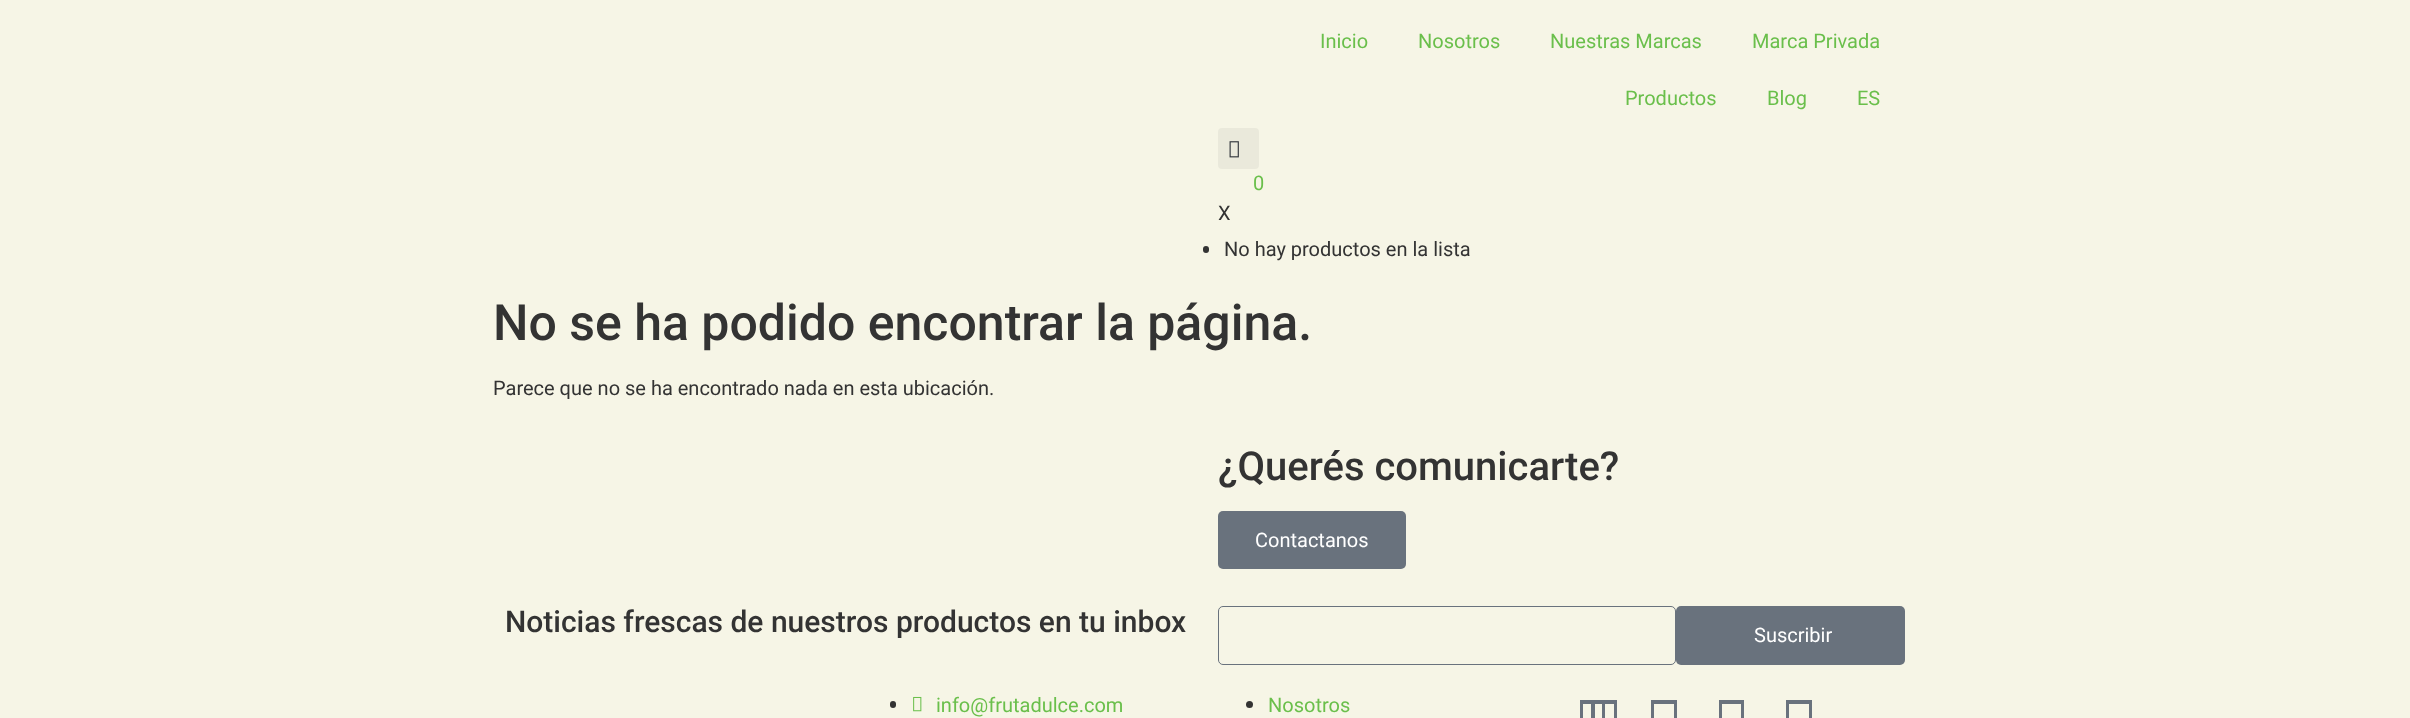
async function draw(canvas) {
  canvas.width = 2410;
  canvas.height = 718;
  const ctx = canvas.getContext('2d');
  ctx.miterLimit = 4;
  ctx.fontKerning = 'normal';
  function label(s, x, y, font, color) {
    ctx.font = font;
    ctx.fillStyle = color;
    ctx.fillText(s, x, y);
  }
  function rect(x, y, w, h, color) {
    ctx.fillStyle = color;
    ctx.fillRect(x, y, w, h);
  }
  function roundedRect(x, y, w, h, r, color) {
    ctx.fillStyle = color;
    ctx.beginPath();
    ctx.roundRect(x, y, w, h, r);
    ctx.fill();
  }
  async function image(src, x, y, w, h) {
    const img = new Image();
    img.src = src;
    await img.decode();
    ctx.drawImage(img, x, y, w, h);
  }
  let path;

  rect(0, 0, 2410, 718, '#f6f5e6');
  label('Inicio', 1320, 48, '20px Roboto', '#6abf4b');
  label('Nosotros', 1418, 48, '20px Roboto', '#6abf4b');
  label('Nuestras Marcas', 1550, 48, '20px Roboto', '#6abf4b');
  label('Marca Privada', 1752, 48, '20px Roboto', '#6abf4b');
  label('Productos', 1625, 105, '20px Roboto', '#6abf4b');
  label('Blog', 1767, 105, '20px Roboto', '#6abf4b');
  label('ES', 1857, 105, '20px Roboto', '#6abf4b');
  roundedRect(1218, 128, 41, 41, 4, '#eae9db');
  await image('assets/img1.png', 1229, 141, 10, 17);
  label('0', 1253, 190, '20px Roboto', '#6abf4b');
  label('X', 1218, 220, '20px Roboto', '#333');
  roundedRect(1203, 246, 6, 7, 3, '#333');
  label('No hay productos en la lista', 1224, 256, '20px Roboto', '#333');
  label('No se ha podido encontrar la página.', 493, 340, '500 50px Roboto', '#333');
  label('Parece que no se ha encontrado nada en esta ubicación.', 493, 395, '20px Roboto', '#333');
  label('¿Querés comunicarte?', 1218, 480, '500 40px Roboto', '#333');
  roundedRect(1218, 511, 188, 58, 5, '#69727d');
  label('Contactanos', 1255, 547, '20px Roboto', '#fff');
  label('Noticias frescas de nuestros productos en tu inbox', 505, 632, '500 30px Roboto', '#333');
  ctx.beginPath();
  ctx.roundRect(1218.5, 606.5, 457, 58, 4.5);
  ctx.strokeStyle = '#69727d';
  ctx.stroke();
  roundedRect(1676, 606, 229, 59, 5, '#69727d');
  label('Suscribir', 1754, 642, '20px Roboto', '#fff');
  roundedRect(890, 701, 6, 7, 3, '#333');
  await image('assets/img2.png', 913, 696, 9, 16);
  label('info@frutadulce.com', 936, 712, '20px Roboto', '#6abf4b');
  ctx.fillStyle = '#333';
  ctx.beginPath();
  ctx.arc(1249.5, 704.5, 3.5, 0, 2 * Math.PI);
  ctx.fill();
  label('Nosotros', 1268, 712, '20px Roboto', '#6abf4b');
  ctx.fillStyle = '#69727d';
  path = new Path2D('M1580 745V700H1605V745ZM1583 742H1602V704H1583Z');
  ctx.fill(path);
  path = new Path2D('M1651 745V700H1677V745ZM1654 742H1674V704H1654Z');
  ctx.fill(path);
  path = new Path2D('M1719 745V700H1744V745ZM1722 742H1741V704H1722Z');
  ctx.fill(path);
  path = new Path2D('M1786 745V700H1812V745ZM1789 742H1809V704H1789Z');
  ctx.fill(path);
  path = new Path2D('M1591 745V700H1617V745ZM1595 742H1614V704H1595Z');
  ctx.fill(path);
}

draw(document.querySelector('canvas'));
